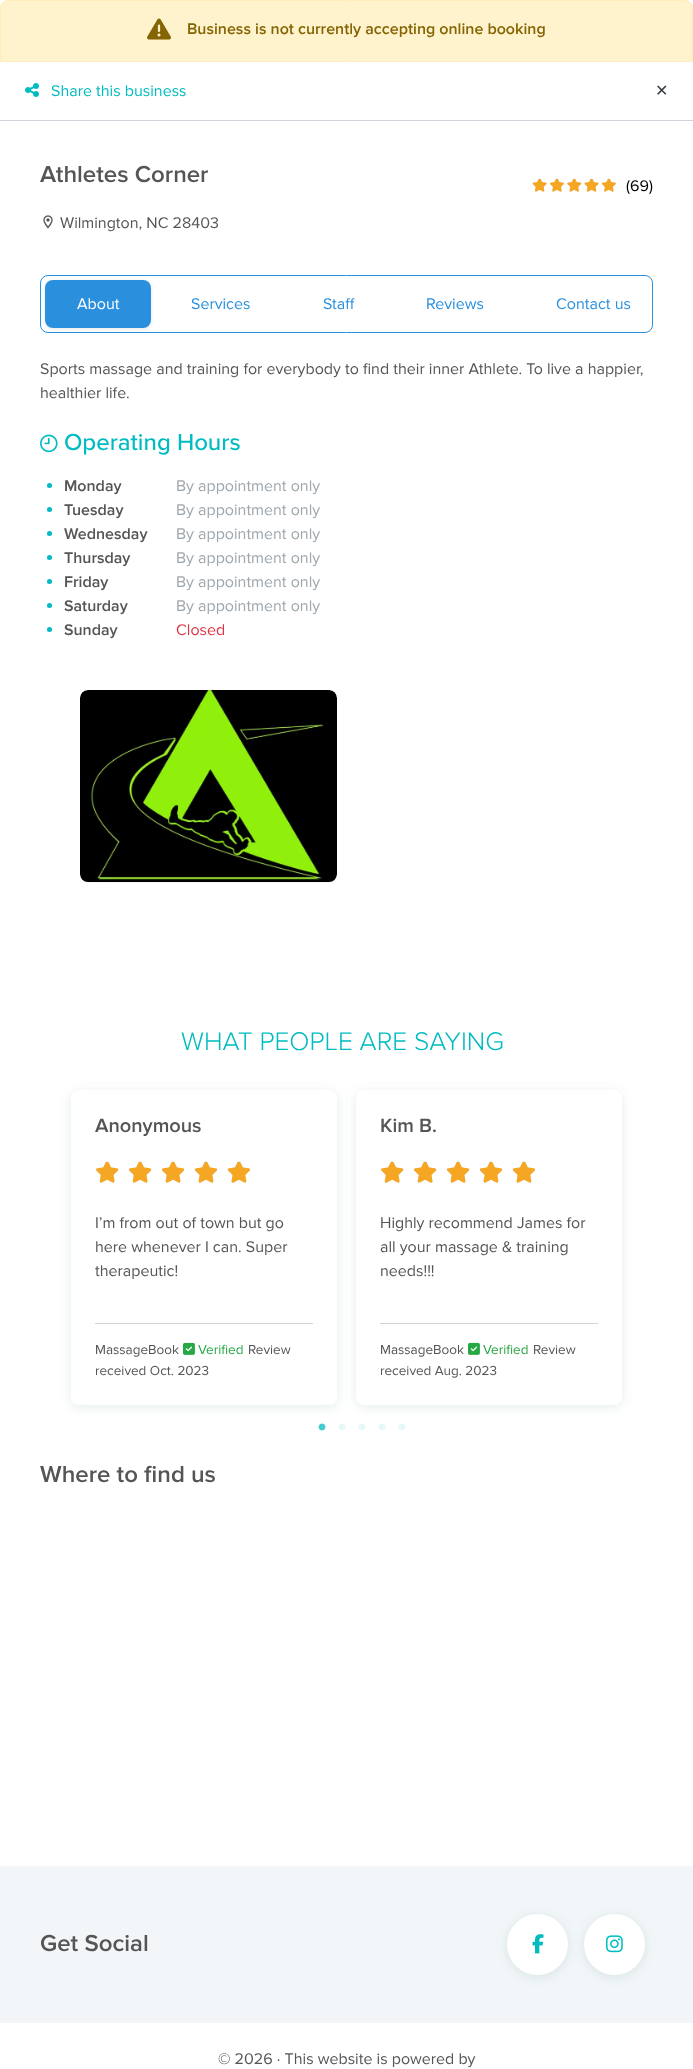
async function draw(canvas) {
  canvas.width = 693;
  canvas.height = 2069;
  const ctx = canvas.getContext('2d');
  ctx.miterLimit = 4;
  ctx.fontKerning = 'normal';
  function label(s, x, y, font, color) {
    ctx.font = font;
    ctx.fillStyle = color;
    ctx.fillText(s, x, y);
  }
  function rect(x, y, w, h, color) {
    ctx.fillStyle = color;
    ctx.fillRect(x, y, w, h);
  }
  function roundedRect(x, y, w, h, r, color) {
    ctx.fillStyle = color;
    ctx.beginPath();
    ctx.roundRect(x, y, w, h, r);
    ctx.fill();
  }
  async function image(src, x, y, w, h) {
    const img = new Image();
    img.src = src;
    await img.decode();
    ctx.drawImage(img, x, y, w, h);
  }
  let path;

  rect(0, 0, 693, 2069, '#fff');
  ctx.fillStyle = '#fff3cd';
  ctx.beginPath();
  ctx.roundRect(0.5, 0.5, 692, 61, [7.5, 7.5, 0, 0]);
  ctx.fill();
  ctx.strokeStyle = '#ffeeba';
  ctx.stroke();
  await image('assets/img1.png', 147, 18, 24, 22);
  label('Business is not currently accepting online booking', 187, 34, '600 16px Proxima Nova', '#856404');
  rect(0, 120, 693, 1, '#ced4da');
  await image('assets/img2.png', 25, 83, 14, 14);
  label('Share this business', 51, 96, '16px Proxima Nova', '#00bcc0');
  label('✕', 655, 96, '16px DejaVu Sans', '#343a40');
  label('Athletes Corner', 40, 182, '600 24px Proxima Nova', '#555');
  await image('assets/img3.png', 43, 215, 10, 14);
  label('Wilmington, NC 28403', 60, 228, '16px Proxima Nova', '#555');
  await image('assets/img4.png', 532, 178, 84, 14);
  await image('assets/img5.png', 532, 179, 84, 13);
  label('(69)', 626, 191, '16px Proxima Nova', '#000');
  ctx.beginPath();
  ctx.roundRect(40.5, 275.5, 612, 57, 7.5);
  ctx.strokeStyle = '#2a90de';
  ctx.stroke();
  ctx.fillStyle = '#1212121a';
  ctx.filter = 'blur(2px)';
  ctx.beginPath();
  ctx.roundRect(45, 281, 106, 48, 8);
  ctx.fill();
  ctx.filter = 'none';
  roundedRect(45, 280, 106, 48, 8, '#2a90de');
  label('About', 77, 309, '16px Proxima Nova', '#fff');
  label('Services', 191, 309, '16px Proxima Nova', '#2a90de');
  label('Staff', 323, 309, '16px Proxima Nova', '#2a90de');
  label('Reviews', 426, 309, '16px Proxima Nova', '#2a90de');
  label('Contact us', 556, 309, '16px Proxima Nova', '#2a90de');
  label('Sports massage and training for everybody to find their inner Athlete. To live a happier,', 40, 374, '16px Proxima Nova', '#555');
  label('healthier life.', 40, 398, '16px Proxima Nova', '#555');
  await image('assets/img6.png', 40, 434, 18, 19);
  label('Operating Hours', 64, 450, '500 24px Proxima Nova', '#00bcc0');
  ctx.beginPath();
  ctx.arc(49.5, 485.5, 2.5, 0, 2 * Math.PI);
  ctx.fill();
  label('Monday', 64, 491, '600 16px Proxima Nova', '#555');
  label('By appointment only', 176, 491, '16px Proxima Nova', '#9da7ad');
  ctx.fillStyle = '#00bcc0';
  ctx.beginPath();
  ctx.arc(49.5, 509.5, 2.5, 0, 2 * Math.PI);
  ctx.fill();
  label('Tuesday', 64, 515, '600 16px Proxima Nova', '#555');
  label('By appointment only', 176, 515, '16px Proxima Nova', '#9da7ad');
  ctx.fillStyle = '#00bcc0';
  ctx.beginPath();
  ctx.arc(49.5, 533.5, 2.5, 0, 2 * Math.PI);
  ctx.fill();
  label('Wednesday', 64, 539, '600 16px Proxima Nova', '#555');
  label('By appointment only', 176, 539, '16px Proxima Nova', '#9da7ad');
  ctx.fillStyle = '#00bcc0';
  ctx.beginPath();
  ctx.arc(49.5, 557.5, 2.5, 0, 2 * Math.PI);
  ctx.fill();
  label('Thursday', 64, 563, '600 16px Proxima Nova', '#555');
  label('By appointment only', 176, 563, '16px Proxima Nova', '#9da7ad');
  ctx.fillStyle = '#00bcc0';
  ctx.beginPath();
  ctx.arc(49.5, 581.5, 2.5, 0, 2 * Math.PI);
  ctx.fill();
  label('Friday', 64, 587, '600 16px Proxima Nova', '#555');
  label('By appointment only', 176, 587, '16px Proxima Nova', '#9da7ad');
  ctx.fillStyle = '#00bcc0';
  ctx.beginPath();
  ctx.arc(49.5, 605.5, 2.5, 0, 2 * Math.PI);
  ctx.fill();
  label('Saturday', 64, 611, '600 16px Proxima Nova', '#555');
  label('By appointment only', 176, 611, '16px Proxima Nova', '#9da7ad');
  ctx.fillStyle = '#00bcc0';
  ctx.beginPath();
  ctx.arc(49.5, 629.5, 2.5, 0, 2 * Math.PI);
  ctx.fill();
  label('Sunday', 64, 635, '600 16px Proxima Nova', '#555');
  label('Closed', 176, 635, '16px Proxima Nova', '#dc3545');
  ctx.save();
  ctx.beginPath();
  ctx.roundRect(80, 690, 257, 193, 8);
  ctx.clip();
  ctx.fillStyle = '#03464a1a';
  ctx.filter = 'blur(6px)';
  ctx.beginPath();
  ctx.roundRect(80, 692, 257, 192, 8);
  ctx.fill();
  ctx.filter = 'none';
  ctx.restore();
  await image('assets/img7.png', 80, 690, 257, 192);
  label('WHAT PEOPLE ARE SAYING', 181, 1050, '300 26.4px Proxima Nova', '#00bcc0');
  ctx.save();
  path = new Path2D('M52 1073H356V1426H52ZM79 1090H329C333.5 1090 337 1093.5 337 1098V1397C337 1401.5 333.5 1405 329 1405H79C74.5 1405 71 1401.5 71 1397V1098C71 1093.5 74.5 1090 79 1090Z');
  ctx.clip(path, 'evenodd');
  ctx.fillStyle = '#03464a1a';
  ctx.filter = 'blur(6px)';
  ctx.beginPath();
  ctx.roundRect(71, 1092, 266, 315, 8);
  ctx.fill();
  ctx.filter = 'none';
  ctx.restore();
  label('Anonymous', 95, 1132, '600 20px Proxima Nova', '#555');
  await image('assets/img8.png', 96, 1161, 154, 22);
  await image('assets/img9.png', 96, 1162, 154, 21);
  label('I’m from out of town but go', 95, 1228, '16px Proxima Nova', '#555');
  label('here whenever I can. Super', 95, 1252, '16px Proxima Nova', '#555');
  label('therapeutic!', 95, 1276, '16px Proxima Nova', '#555');
  rect(95, 1323, 218, 1, '#ced4da');
  label('MassageBook', 95, 1354, '13.5px Proxima Nova', '#555');
  await image('assets/img10.png', 183, 1342, 12, 13);
  label('Verified', 198, 1354, '13.5px Proxima Nova', '#28a745');
  label('Review', 248, 1354, '13.5px Proxima Nova', '#555');
  label('received Oct. 2023', 95, 1375, '13.5px Proxima Nova', '#555');
  ctx.save();
  path = new Path2D('M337 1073H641V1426H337ZM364 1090H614C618.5 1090 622 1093.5 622 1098V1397C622 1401.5 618.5 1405 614 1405H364C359.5 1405 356 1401.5 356 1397V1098C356 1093.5 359.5 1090 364 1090Z');
  ctx.clip(path, 'evenodd');
  ctx.fillStyle = '#03464a1a';
  ctx.filter = 'blur(6px)';
  ctx.beginPath();
  ctx.roundRect(356, 1092, 266, 315, 8);
  ctx.fill();
  ctx.filter = 'none';
  ctx.restore();
  label('Kim B.', 380, 1132, '600 20px Proxima Nova', '#555');
  await image('assets/img8.png', 381, 1161, 154, 22);
  await image('assets/img9.png', 381, 1162, 154, 21);
  label('Highly recommend James for', 380, 1228, '16px Proxima Nova', '#555');
  label('all your massage & training', 380, 1252, '16px Proxima Nova', '#555');
  label('needs!!!', 380, 1276, '16px Proxima Nova', '#555');
  rect(380, 1323, 218, 1, '#ced4da');
  label('MassageBook', 380, 1354, '13.5px Proxima Nova', '#555');
  await image('assets/img10.png', 468, 1342, 12, 13);
  label('Verified', 483, 1354, '13.5px Proxima Nova', '#28a745');
  label('Review', 533, 1354, '13.5px Proxima Nova', '#555');
  label('received Aug. 2023', 380, 1375, '13.5px Proxima Nova', '#555');
  await image('assets/img11.png', 318, 1423, 8, 8);
  await image('assets/img12.png', 338, 1423, 8, 8);
  await image('assets/img12.png', 358, 1423, 8, 8);
  await image('assets/img12.png', 378, 1423, 8, 8);
  await image('assets/img12.png', 398, 1423, 8, 8);
  label('Where to find us', 40, 1482, '600 24px Proxima Nova', '#555');
  rect(0, 1866, 693, 157, '#f2f6f8');
  label('Get Social', 40, 1951, '600 24px Proxima Nova', '#555');
  ctx.fillStyle = '#03464a1a';
  ctx.filter = 'blur(6px)';
  ctx.beginPath();
  ctx.roundRect(507, 1916, 61, 61, 30.5);
  ctx.fill();
  ctx.filter = 'none';
  ctx.fillStyle = '#fff';
  ctx.beginPath();
  ctx.arc(537.5, 1944.5, 30.5, 0, 2 * Math.PI);
  ctx.fill();
  await image('assets/img13.png', 532, 1934, 12, 20);
  ctx.fillStyle = '#03464a1a';
  ctx.filter = 'blur(6px)';
  ctx.beginPath();
  ctx.roundRect(584, 1916, 61, 61, 30.5);
  ctx.fill();
  ctx.filter = 'none';
  ctx.fillStyle = '#fff';
  ctx.beginPath();
  ctx.arc(614.5, 1944.5, 30.5, 0, 2 * Math.PI);
  ctx.fill();
  await image('assets/img14.png', 606, 1935, 17, 18);
  label('© 2026 · This website is powered by', 218, 2064, '16px Proxima Nova', '#555');
}

draw(document.querySelector('canvas'));
